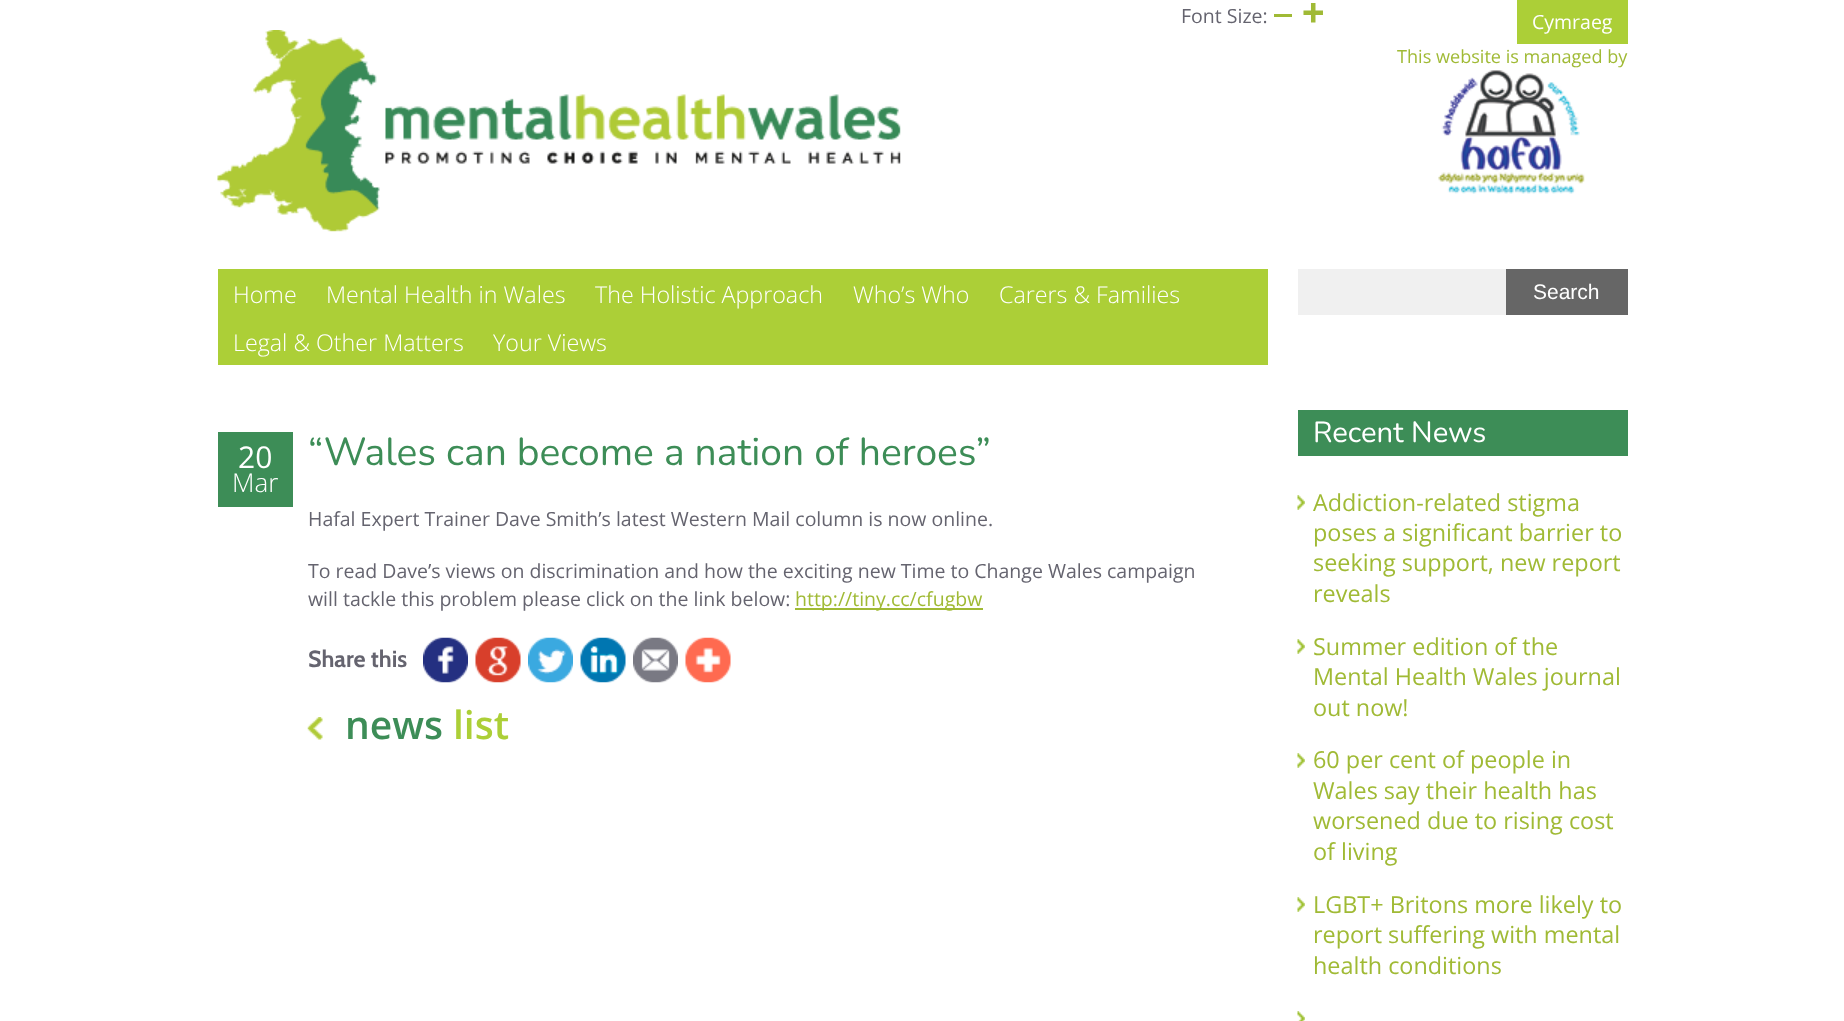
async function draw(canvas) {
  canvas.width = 1844;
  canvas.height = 1021;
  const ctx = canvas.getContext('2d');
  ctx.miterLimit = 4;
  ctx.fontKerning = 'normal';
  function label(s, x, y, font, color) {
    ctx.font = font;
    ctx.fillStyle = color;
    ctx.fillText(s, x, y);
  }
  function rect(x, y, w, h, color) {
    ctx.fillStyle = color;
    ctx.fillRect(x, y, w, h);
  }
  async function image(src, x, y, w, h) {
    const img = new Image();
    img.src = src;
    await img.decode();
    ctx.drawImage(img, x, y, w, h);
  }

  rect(0, 0, 1844, 1021, '#fff');
  label('Font Size:', 1181, 23, '19.5px Open Sans', '#65646f');
  rect(1274, 14, 18, 3, '#a0ba35');
  await image('assets/img1.png', 1303, 3, 20, 20);
  rect(1517, 0, 111, 44, '#accf37');
  label('Cymraeg', 1532, 29, '19.5px Open Sans', '#fff');
  await image('assets/img2.png', 217, 30, 684, 202);
  label('This website is managed by', 1397, 63, '18.1px Open Sans', '#a0ba35');
  await image('assets/img3.png', 1438, 70, 147, 124);
  rect(218, 269, 1050, 96, '#accf37');
  label('Home', 233, 303, '300 23.25px Open Sans', '#fff');
  label('Mental Health in Wales', 326, 303, '300 23.25px Open Sans', '#fff');
  label('The Holistic Approach', 595, 303, '300 23.25px Open Sans', '#fff');
  label('Who’s Who', 853, 303, '300 23.25px Open Sans', '#fff');
  label('Carers & Families', 999, 303, '300 23.25px Open Sans', '#fff');
  label('Legal & Other Matters', 233, 351, '300 23.25px Open Sans', '#fff');
  label('Your Views', 493, 351, '300 23.25px Open Sans', '#fff');
  rect(1298, 269, 208, 46, '#f0f0f0');
  rect(1506, 269, 122, 46, '#666');
  label('Search', 1533, 299, '21px Liberation Sans', '#fff');
  rect(218, 432, 75, 75, '#3d8d57');
  label('20', 238, 468, '30px Open Sans', '#fff');
  label('Mar', 232, 492, '300 26px Open Sans', '#fff');
  label('“Wales can become a nation of heroes”', 308, 465, '39px Nunito', '#3d8d57');
  label('Hafal Expert Trainer Dave Smith’s latest Western Mail column is now online.', 308, 526, '19.5px Open Sans', '#65646f');
  label('To read Dave’s views on discrimination and how the exciting new Time to Change Wales campaign', 308, 578, '19.5px Open Sans', '#65646f');
  label('will tackle this problem please click on the link below:', 308, 606, '19.5px Open Sans', '#65646f');
  rect(795, 608, 188, 2, '#a0ba35');
  label('http://tiny.cc/cfugbw', 795, 606, '19.5px Open Sans', '#a0ba35');
  label('Share this', 308, 667, 'bold 23.4px Cabin', '#65646f');
  await image('assets/img4.png', 423, 637, 45, 46);
  await image('assets/img5.png', 475, 637, 46, 46);
  await image('assets/img6.png', 528, 637, 45, 46);
  await image('assets/img7.png', 580, 637, 46, 46);
  await image('assets/img8.png', 633, 637, 45, 46);
  await image('assets/img9.png', 685, 637, 46, 46);
  await image('assets/img10.png', 307, 717, 16, 23);
  label('news', 345, 739, '600 39px Open Sans', '#3d8d57');
  label('list', 453, 739, '600 39px Open Sans', '#accf37');
  rect(1298, 410, 330, 46, '#3d8d57');
  label('Recent News', 1313, 442, '29.25px Nunito', '#fff');
  await image('assets/img11.png', 1297, 495, 8, 15);
  label('Addiction-related stigma', 1313, 511, '23.4px Open Sans', '#a0ba35');
  label('poses a significant barrier to', 1313, 541, '23.4px Open Sans', '#a0ba35');
  label('seeking support, new report', 1313, 571, '23.4px Open Sans', '#a0ba35');
  label('reveals', 1313, 602, '23.4px Open Sans', '#a0ba35');
  await image('assets/img11.png', 1297, 639, 8, 15);
  label('Summer edition of the', 1313, 655, '23.4px Open Sans', '#a0ba35');
  label('Mental Health Wales journal', 1313, 685, '23.4px Open Sans', '#a0ba35');
  label('out now!', 1313, 716, '23.4px Open Sans', '#a0ba35');
  await image('assets/img11.png', 1297, 753, 8, 15);
  label('60 per cent of people in', 1313, 768, '23.4px Open Sans', '#a0ba35');
  label('Wales say their health has', 1313, 799, '23.4px Open Sans', '#a0ba35');
  label('worsened due to rising cost', 1313, 829, '23.4px Open Sans', '#a0ba35');
  label('of living', 1313, 860, '23.4px Open Sans', '#a0ba35');
  await image('assets/img11.png', 1297, 897, 8, 15);
  label('LGBT+ Britons more likely to', 1313, 913, '23.4px Open Sans', '#a0ba35');
  label('report suffering with mental', 1313, 943, '23.4px Open Sans', '#a0ba35');
  label('health conditions', 1313, 974, '23.4px Open Sans', '#a0ba35');
  await image('assets/img12.png', 1297, 1011, 8, 10);
}

draw(document.querySelector('canvas'));
